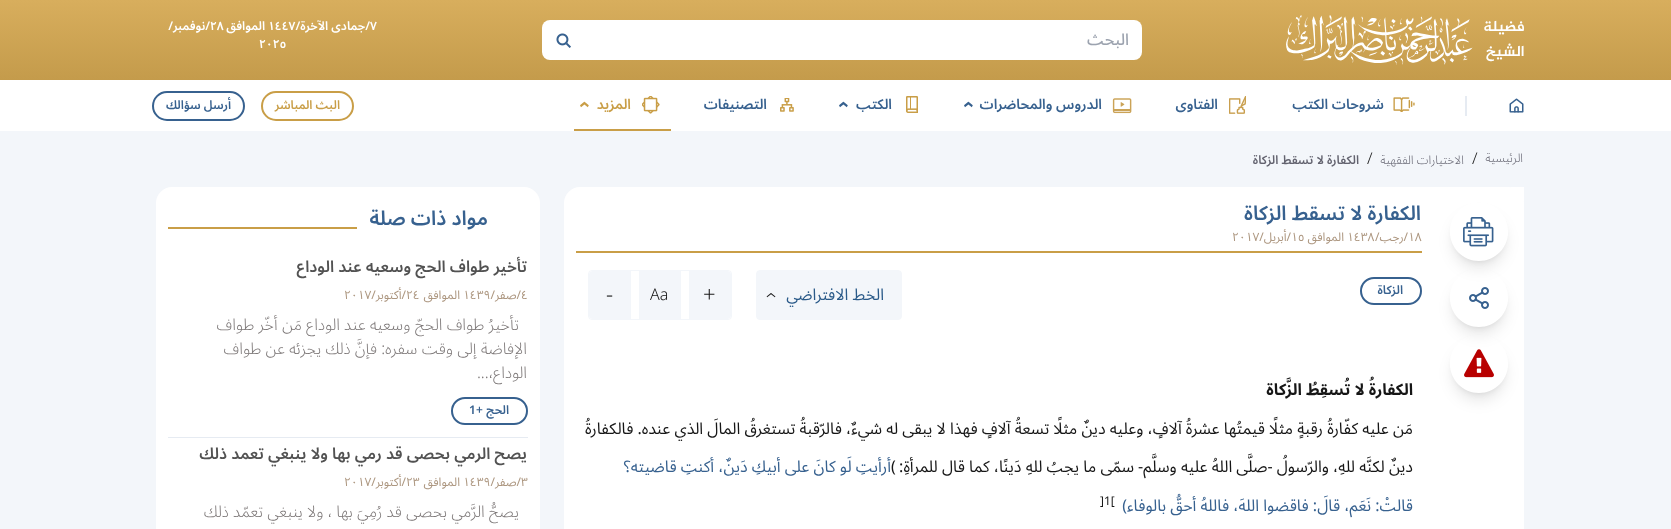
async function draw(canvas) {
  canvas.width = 1671;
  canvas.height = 529;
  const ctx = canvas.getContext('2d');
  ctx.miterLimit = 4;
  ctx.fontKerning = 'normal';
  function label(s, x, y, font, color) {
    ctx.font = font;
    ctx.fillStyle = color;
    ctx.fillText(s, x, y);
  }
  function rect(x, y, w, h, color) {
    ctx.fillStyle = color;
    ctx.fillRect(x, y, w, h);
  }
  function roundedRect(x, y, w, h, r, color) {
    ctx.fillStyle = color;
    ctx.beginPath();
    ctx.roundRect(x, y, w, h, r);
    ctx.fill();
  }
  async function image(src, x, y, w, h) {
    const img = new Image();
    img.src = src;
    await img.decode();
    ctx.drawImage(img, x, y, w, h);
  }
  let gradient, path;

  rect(0, 0, 1671, 529, '#f3f6fa');
  gradient = ctx.createLinearGradient(836, 0, 836, 80);
  gradient.addColorStop(0, '#d8ae5d');
  gradient.addColorStop(1, '#c49b4b');
  ctx.fillStyle = gradient;
  ctx.fillRect(0, 0, 1671, 80);
  await image('assets/img1.png', 1286, 15, 238, 50);
  roundedRect(542, 20, 600, 40, 8, '#fff');
  ctx.direction = 'rtl';
  label('البحث', 1129, 45, '500 16px Noto Sans Arabic', '#9ca3af');
  await image('assets/img2.png', 556, 33, 15, 15);
  label('/جمادى الآخرة/', 370, 30, '600 12px Noto Sans Arabic', '#fff');
  ctx.direction = 'ltr';
  label('٧', 370, 30, '600 12px Noto Sans Arabic', '#fff');
  label('١٤٤٧', 268, 30, '600 12px Noto Sans Arabic', '#fff');
  ctx.direction = 'rtl';
  label('الموافق', 265, 30, '600 12px Noto Sans Arabic', '#fff');
  ctx.direction = 'ltr';
  label('٢٨', 210, 30, '600 12px Noto Sans Arabic', '#fff');
  ctx.direction = 'rtl';
  label('/نوفمبر/', 210, 30, '600 12px Noto Sans Arabic', '#fff');
  ctx.direction = 'ltr';
  label('٢٠٢٥', 259, 48, '600 12px Noto Sans Arabic', '#fff');
  rect(0, 80, 1671, 51, '#fff');
  await image('assets/img3.png', 1509, 98, 15, 15);
  rect(1465, 96, 2, 20, '#e6ebf2');
  await image('assets/img4.png', 1393, 97, 22, 15);
  ctx.direction = 'rtl';
  label('شروحات الكتب', 1384, 109, '600 14px Noto Sans Arabic', '#37618f');
  await image('assets/img5.png', 1229, 96, 17, 18);
  label('الفتاوى', 1218, 109, '600 14px Noto Sans Arabic', '#37618f');
  await image('assets/img6.png', 1112, 98, 20, 16);
  label('الدروس والمحاضرات', 1102, 109, '600 14px Noto Sans Arabic', '#37618f');
  ctx.direction = 'ltr';
  ctx.font = '600 20px Noto Sans Arabic';
  ctx.save();
  ctx.translate(963, 101);
  ctx.rotate(90 * Math.PI / 180);
  ctx.fillText('‹', 0, 0);
  ctx.restore();
  await image('assets/img7.png', 906, 96, 12, 17);
  ctx.direction = 'rtl';
  label('الكتب', 892, 109, '600 14px Noto Sans Arabic', '#37618f');
  ctx.direction = 'ltr';
  ctx.font = '600 20px Noto Sans Arabic';
  ctx.save();
  ctx.translate(838, 101);
  ctx.rotate(90 * Math.PI / 180);
  ctx.fillText('‹', 0, 0);
  ctx.restore();
  await image('assets/img8.png', 780, 98, 14, 14);
  ctx.direction = 'rtl';
  label('التصنيفات', 767, 109, '600 14px Noto Sans Arabic', '#37618f');
  rect(574, 129, 97, 2, '#c99e47');
  await image('assets/img9.png', 642, 96, 18, 18);
  label('المزيد', 631, 109, '600 14px Noto Sans Arabic', '#c99e47');
  ctx.direction = 'ltr';
  ctx.font = '600 20px Noto Sans Arabic';
  ctx.save();
  ctx.translate(579, 101);
  ctx.rotate(90 * Math.PI / 180);
  ctx.fillText('‹', 0, 0);
  ctx.restore();
  ctx.beginPath();
  ctx.roundRect(262, 92, 91, 28, 14);
  ctx.strokeStyle = '#c99e47';
  ctx.lineWidth = 2;
  ctx.stroke();
  ctx.direction = 'rtl';
  label('البث المباشر', 340, 109, '600 12px Noto Sans Arabic', '#c99e47');
  ctx.beginPath();
  ctx.roundRect(153, 92, 91, 28, 14);
  ctx.strokeStyle = '#37618f';
  ctx.stroke();
  label('أرسل سؤالك', 231, 109, '600 12px Noto Sans Arabic', '#37618f');
  label('الرئيسية', 1523, 162, '300 12px Noto Sans Arabic', '#63636f');
  ctx.direction = 'ltr';
  label('/', 1472, 164, '300 16px Noto Sans Arabic', '#161616');
  ctx.direction = 'rtl';
  label('الاختيارات الفقهية', 1464, 164, '300 12px Noto Sans Arabic', '#63636f');
  ctx.direction = 'ltr';
  label('/', 1367, 164, '300 16px Noto Sans Arabic', '#161616');
  ctx.direction = 'rtl';
  label('الكفارة لا تسقط الزكاة', 1359, 164, '600 12px Noto Sans Arabic', '#63636f');
  roundedRect(564, 187, 960, 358, 16, '#fff');
  rect(1511, 187, 13, 14, '#fff');
  ctx.save();
  path = new Path2D('M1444 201H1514V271H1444ZM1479 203C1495 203 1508 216 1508 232C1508 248 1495 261 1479 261C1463 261 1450 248 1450 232C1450 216 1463 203 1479 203Z');
  ctx.clip(path, 'evenodd');
  ctx.fillStyle = '#0000001a';
  ctx.filter = 'blur(3px)';
  ctx.beginPath();
  ctx.roundRect(1454, 211, 50, 50, 25);
  ctx.fill();
  ctx.filter = 'none';
  ctx.restore();
  ctx.save();
  path = new Path2D('M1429 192H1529V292H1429ZM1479 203C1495 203 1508 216 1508 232C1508 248 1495 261 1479 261C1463 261 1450 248 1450 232C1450 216 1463 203 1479 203Z');
  ctx.clip(path, 'evenodd');
  ctx.fillStyle = '#0000001a';
  ctx.filter = 'blur(7.5px)';
  ctx.beginPath();
  ctx.roundRect(1453, 216, 52, 52, 26);
  ctx.fill();
  ctx.filter = 'none';
  ctx.restore();
  await image('assets/img10.png', 1463, 217, 31, 30);
  ctx.save();
  path = new Path2D('M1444 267H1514V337H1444ZM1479 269C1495 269 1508 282 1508 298C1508 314 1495 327 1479 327C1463 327 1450 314 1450 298C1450 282 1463 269 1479 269Z');
  ctx.clip(path, 'evenodd');
  ctx.fillStyle = '#0000001a';
  ctx.filter = 'blur(3px)';
  ctx.beginPath();
  ctx.roundRect(1454, 277, 50, 50, 25);
  ctx.fill();
  ctx.filter = 'none';
  ctx.restore();
  ctx.save();
  path = new Path2D('M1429 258H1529V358H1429ZM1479 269C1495 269 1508 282 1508 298C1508 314 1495 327 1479 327C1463 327 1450 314 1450 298C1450 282 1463 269 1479 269Z');
  ctx.clip(path, 'evenodd');
  ctx.fillStyle = '#0000001a';
  ctx.filter = 'blur(7.5px)';
  ctx.beginPath();
  ctx.roundRect(1453, 282, 52, 52, 26);
  ctx.fill();
  ctx.filter = 'none';
  ctx.restore();
  await image('assets/img11.png', 1469, 287, 20, 22);
  ctx.save();
  path = new Path2D('M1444 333H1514V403H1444ZM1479 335C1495 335 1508 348 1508 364C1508 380 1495 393 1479 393C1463 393 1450 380 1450 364C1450 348 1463 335 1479 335Z');
  ctx.clip(path, 'evenodd');
  ctx.fillStyle = '#0000001a';
  ctx.filter = 'blur(3px)';
  ctx.beginPath();
  ctx.roundRect(1454, 343, 50, 50, 25);
  ctx.fill();
  ctx.filter = 'none';
  ctx.restore();
  ctx.save();
  path = new Path2D('M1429 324H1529V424H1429ZM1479 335C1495 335 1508 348 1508 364C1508 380 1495 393 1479 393C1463 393 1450 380 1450 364C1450 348 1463 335 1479 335Z');
  ctx.clip(path, 'evenodd');
  ctx.fillStyle = '#0000001a';
  ctx.filter = 'blur(7.5px)';
  ctx.beginPath();
  ctx.roundRect(1453, 348, 52, 52, 26);
  ctx.fill();
  ctx.filter = 'none';
  ctx.restore();
  await image('assets/img12.png', 1464, 349, 30, 29);
  rect(576, 251, 846, 2, '#c99e47');
  label('الكفارة لا تسقط الزكاة', 1421, 220, '600 20px Noto Sans Arabic', '#37618f');
  ctx.direction = 'ltr';
  label('١٨', 1408, 241, '12px Noto Sans Arabic', '#ad9780');
  label('١٤٣٨', 1347, 241, '12px Noto Sans Arabic', '#ad9780');
  ctx.direction = 'rtl';
  label('/رجب/', 1408, 241, '12px Noto Sans Arabic', '#ad9780');
  label('الموافق', 1344, 241, '12px Noto Sans Arabic', '#ad9780');
  ctx.direction = 'ltr';
  label('١٥', 1291, 241, '12px Noto Sans Arabic', '#ad9780');
  ctx.direction = 'rtl';
  label('/أبريل/', 1291, 241, '12px Noto Sans Arabic', '#ad9780');
  ctx.direction = 'ltr';
  label('٢٠١٧', 1232, 241, '12px Noto Sans Arabic', '#ad9780');
  ctx.beginPath();
  ctx.roundRect(1361, 278, 60, 26, 13);
  ctx.stroke();
  ctx.direction = 'rtl';
  label('الزكاة', 1403, 294, '600 12px Noto Sans Arabic', '#37618f');
  ctx.fillStyle = '#f3f6fa';
  ctx.beginPath();
  ctx.roundRect(756.5, 270.5, 145, 49, 3.5);
  ctx.fill();
  ctx.strokeStyle = '#f3f6fa';
  ctx.lineWidth = 1;
  ctx.stroke();
  label('الخط الافتراضي', 884, 300, '16px Noto Sans Arabic', '#2a5a89');
  ctx.direction = 'ltr';
  ctx.font = '300 22px Noto Sans Arabic';
  ctx.fillStyle = '#161616';
  ctx.save();
  ctx.translate(777, 298);
  ctx.rotate(-90 * Math.PI / 180);
  ctx.fillText('›', 0, 0);
  ctx.restore();
  ctx.beginPath();
  ctx.roundRect(588.5, 270.5, 143, 49, 3.5);
  ctx.stroke();
  ctx.fillStyle = '#f3f6fa';
  ctx.beginPath();
  ctx.roundRect(689, 271, 42, 48, [0, 4, 4, 0]);
  ctx.fill();
  label('+', 703, 302, '300 22px Noto Sans Arabic', '#161616');
  rect(639, 271, 42, 48, '#f3f6fa');
  label('Aa', 650, 300, '300 16px Noto Sans Arabic', '#161616');
  ctx.fillStyle = '#f3f6fa';
  ctx.beginPath();
  ctx.roundRect(589, 271, 42, 48, [4, 0, 0, 4]);
  ctx.fill();
  label('-', 606, 302, '300 22px Noto Sans Arabic', '#161616');
  ctx.direction = 'rtl';
  label('الكفارةُ لا تُسقِطُ الزَّكاة', 1413, 395, 'bold 16px Noto Sans Arabic', '#161616');
  label('مَن عليه كفّارةُ رقبةٍ مثلًا قيمتُها عشرةُ آلافٍ، وعليه دينٌ مثلًا تسعةُ آلافٍ فهذا لا يبقى له شيءٌ، فالرّقبةُ تستغرقُ المالَ الذي عنده. فالكفارةُ', 1413, 434, '16px Noto Sans Arabic', '#161616');
  label('دينٌ لكنَّه للهِ، والرّسولُ -صلَّى اللهُ عليه وسلَّم- سمّى ما يجبُ للهِ دَينًا، كما قال للمرأةِ:', 1413, 472, '16px Noto Sans Arabic', '#161616');
  ctx.direction = 'ltr';
  label('(', 891, 472, '16px Noto Sans Arabic', '#161616');
  ctx.direction = 'rtl';
  label('أرأيتِ لَو كانَ على أبيكِ دَينٌ، أكنتِ قاضيته؟', 891, 472, '16px Noto Sans Arabic', '#37618f');
  label('قالتْ: نَعَم، قالَ: فاقضوا اللهَ، فاللهُ أحقُّ بالوفاء)', 1413, 511, '16px Noto Sans Arabic', '#37618f');
  ctx.direction = 'ltr';
  label(']1[', 1100, 505, '12px Noto Sans Arabic', '#161616');
  roundedRect(156, 187, 384, 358, 16, '#fff');
  ctx.direction = 'rtl';
  label('مواد ذات صلة', 488, 225, '600 20px Noto Sans Arabic', '#37618f');
  rect(168, 227, 189, 2, '#c99e47');
  rect(168, 437, 360, 1, '#e6ebf2');
  label('تأخير طواف الحج وسعيه عند الوداع', 527, 272, '600 16px Noto Sans Arabic', '#525252');
  ctx.direction = 'ltr';
  label('٤', 521, 299, '12px Noto Sans Arabic', '#ad9780');
  ctx.direction = 'rtl';
  label('/صفر/', 521, 299, '12px Noto Sans Arabic', '#ad9780');
  ctx.direction = 'ltr';
  label('١٤٣٩', 463, 299, '12px Noto Sans Arabic', '#ad9780');
  ctx.direction = 'rtl';
  label('الموافق', 460, 299, '12px Noto Sans Arabic', '#ad9780');
  ctx.direction = 'ltr';
  label('٢٤', 406, 299, '12px Noto Sans Arabic', '#ad9780');
  label('٢٠١٧', 344, 299, '12px Noto Sans Arabic', '#ad9780');
  ctx.direction = 'rtl';
  label('/أكتوبر/', 406, 299, '12px Noto Sans Arabic', '#ad9780');
  label('تأخيرُ طواف الحجّ وسعيه عند الوداع مَن أخّر طواف', 519, 330, '300 16px Noto Sans Arabic', '#7b7676');
  label('الإفاضة إلى وقت سفره: فإنَّ ذلك يجزئه عن طواف', 527, 354, '300 16px Noto Sans Arabic', '#7b7676');
  label('الوداع،...', 527, 378, '300 16px Noto Sans Arabic', '#7b7676');
  ctx.beginPath();
  ctx.roundRect(452, 398, 75, 26, 13);
  ctx.strokeStyle = '#37618f';
  ctx.lineWidth = 2;
  ctx.stroke();
  label('الحج', 509, 414, '600 12px Noto Sans Arabic', '#37618f');
  ctx.direction = 'ltr';
  label('+', 476, 414, '600 12px Noto Sans Arabic', '#37618f');
  label('1', 469, 414, '600 12px Noto Sans Arabic', '#37618f');
  ctx.direction = 'rtl';
  label('يصح الرمي بحصى قد رمي بها ولا ينبغي تعمد ذلك', 527, 459, '600 16px Noto Sans Arabic', '#525252');
  ctx.direction = 'ltr';
  label('٣', 521, 486, '12px Noto Sans Arabic', '#ad9780');
  ctx.direction = 'rtl';
  label('/صفر/', 521, 486, '12px Noto Sans Arabic', '#ad9780');
  ctx.direction = 'ltr';
  label('١٤٣٩', 463, 486, '12px Noto Sans Arabic', '#ad9780');
  ctx.direction = 'rtl';
  label('الموافق', 460, 486, '12px Noto Sans Arabic', '#ad9780');
  ctx.direction = 'ltr';
  label('٢٣', 406, 486, '12px Noto Sans Arabic', '#ad9780');
  label('٢٠١٧', 344, 486, '12px Noto Sans Arabic', '#ad9780');
  ctx.direction = 'rtl';
  label('/أكتوبر/', 406, 486, '12px Noto Sans Arabic', '#ad9780');
  label('يصحُّ الرَّمي بحصى قد رُمِيَ بها ، ولا ينبغي تعمّد ذلك', 519, 517, '300 16px Noto Sans Arabic', '#7b7676');
}

draw(document.querySelector('canvas'));
